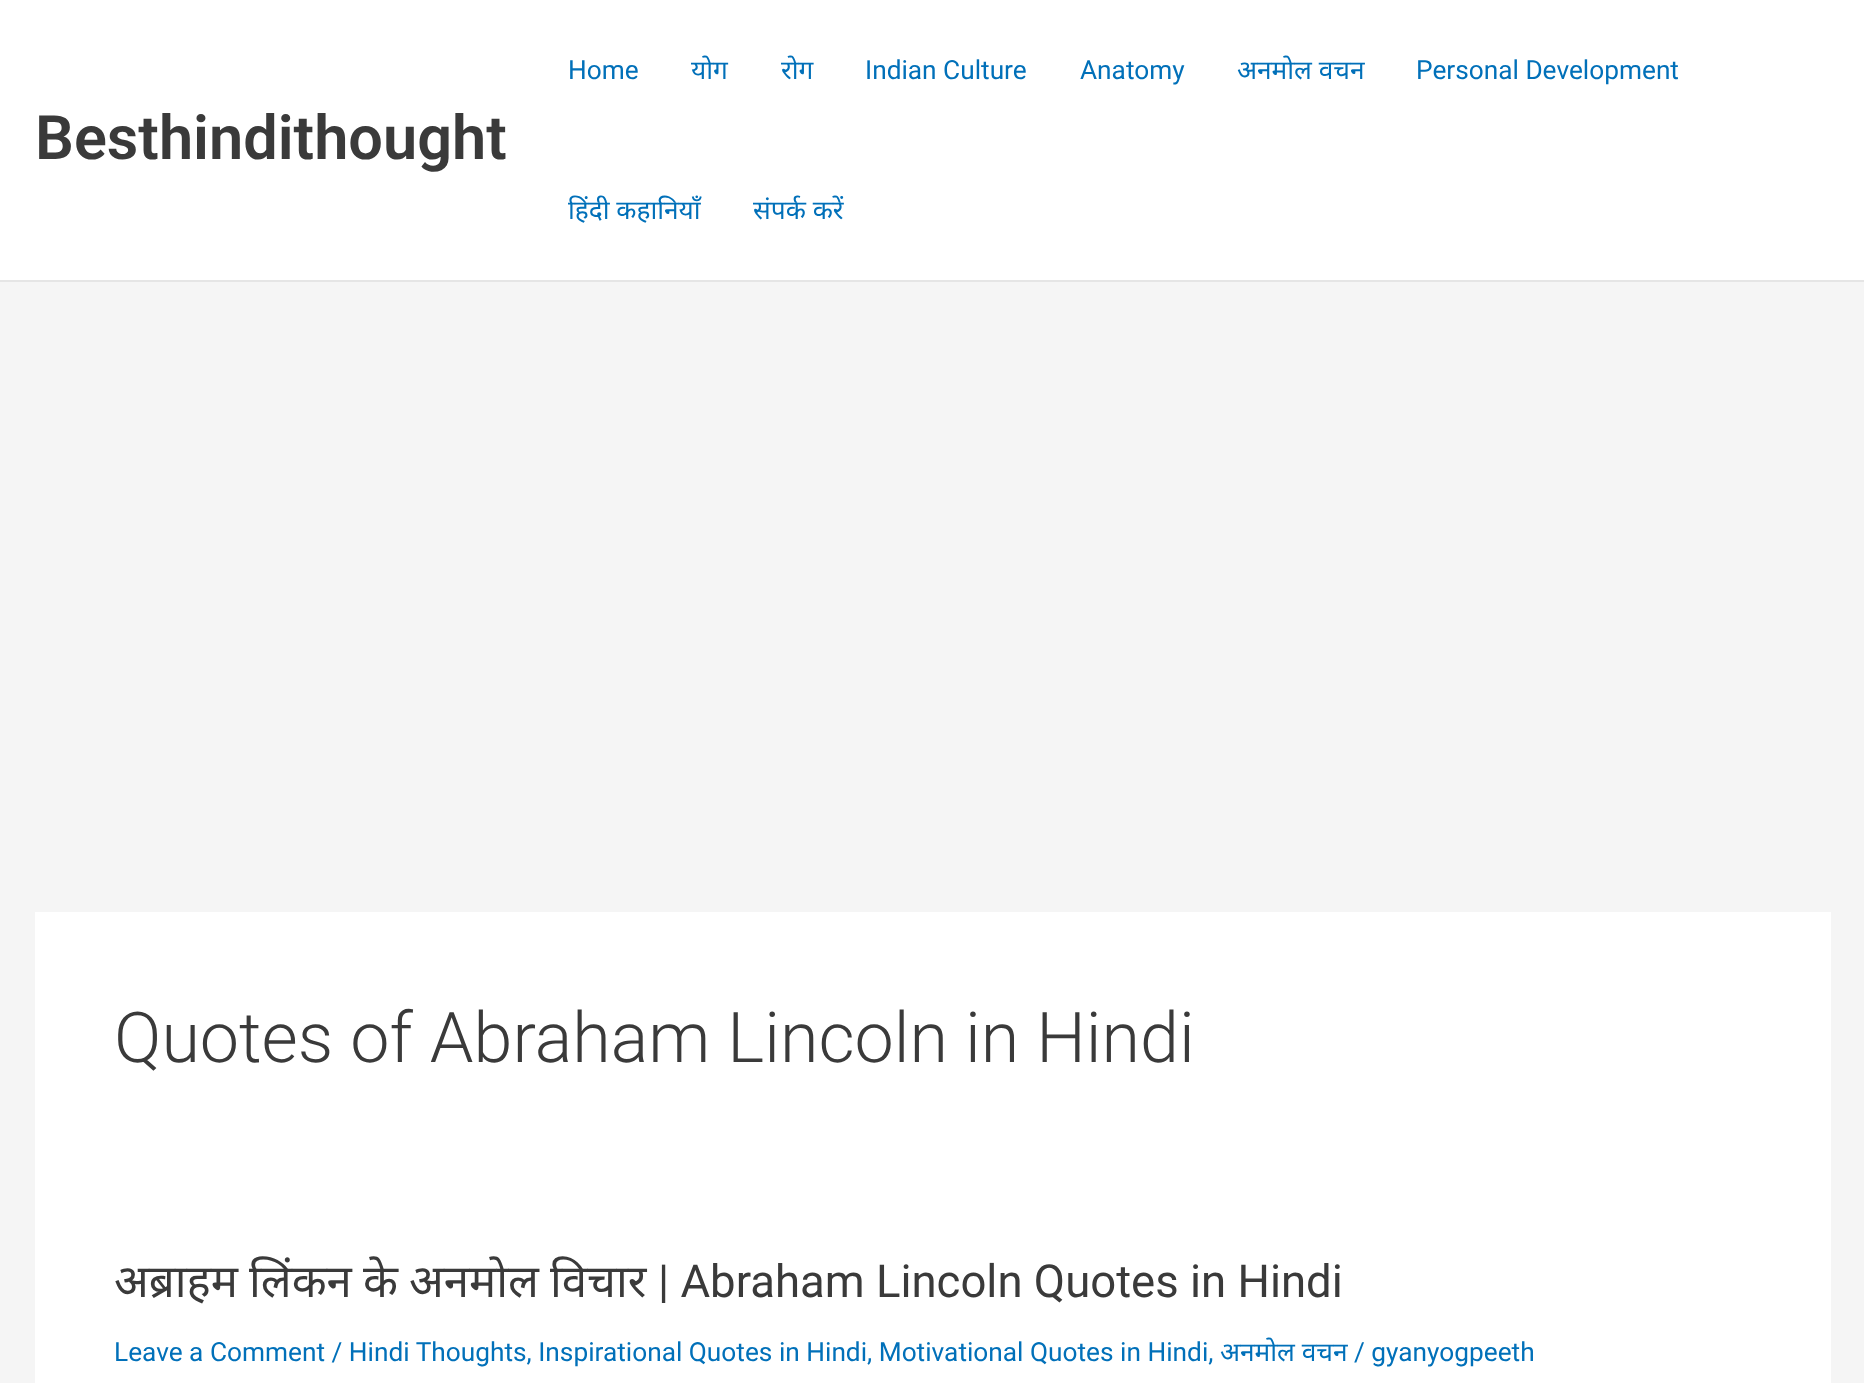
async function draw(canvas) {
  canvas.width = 1864;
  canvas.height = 1383;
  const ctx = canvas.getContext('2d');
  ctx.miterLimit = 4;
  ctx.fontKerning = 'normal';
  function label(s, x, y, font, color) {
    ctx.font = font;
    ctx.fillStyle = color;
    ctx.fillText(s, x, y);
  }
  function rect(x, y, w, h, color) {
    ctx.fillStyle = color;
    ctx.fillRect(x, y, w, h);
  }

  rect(0, 0, 1864, 1383, '#f5f5f5');
  rect(0, 0, 1864, 280, '#fff');
  rect(0, 280, 1864, 2, '#e5e5e5');
  label('Besthindithought', 35, 159, '600 61.25px Roboto', '#3a3a3a');
  label('Home', 568, 79, '26.25px Roboto', '#0170b9');
  label('योग', 691, 79, '26.25px Noto Sans', '#0170b9');
  label('रोग', 781, 79, '26.25px Noto Sans', '#0170b9');
  label('Indian Culture', 865, 79, '26.25px Roboto', '#0170b9');
  label('Anatomy', 1080, 79, '26.25px Roboto', '#0170b9');
  label('अनमोल वचन', 1237, 79, '26.25px Noto Sans', '#0170b9');
  label('Personal Development', 1416, 79, '26.25px Roboto', '#0170b9');
  label('हिंदी कहानियाँ', 568, 219, '26.25px Noto Sans', '#0170b9');
  label('संपर्क करें', 753, 219, '26.25px Noto Sans', '#0170b9');
  rect(35, 912, 1796, 471, '#fff');
  label('Quotes of Abraham Lincoln in Hindi', 114, 1062, '300 70px Roboto', '#3a3a3a');
  label('अब्राहम', 114, 1297, '45.5px Noto Sans', '#3a3a3a');
  label('लिंकन', 249, 1297, '45.5px Noto Sans', '#3a3a3a');
  label('के', 363, 1297, '45.5px Noto Sans', '#3a3a3a');
  label('अनमोल', 409, 1297, '45.5px Noto Sans', '#3a3a3a');
  label('विचार', 550, 1297, '45.5px Noto Sans', '#3a3a3a');
  label('| Abraham Lincoln Quotes in Hindi', 658, 1297, '45.5px Roboto', '#3a3a3a');
  label('Leave a Comment / Hindi Thoughts, Inspirational Quotes in Hindi, Motivational Quotes in Hindi,', 114, 1361, '26.25px Roboto', '#0170b9');
  label('अनमोल वचन', 1220, 1361, '26.25px Noto Sans', '#0170b9');
  label('/ gyanyogpeeth', 1354, 1361, '26.25px Roboto', '#0170b9');
}

draw(document.querySelector('canvas'));
